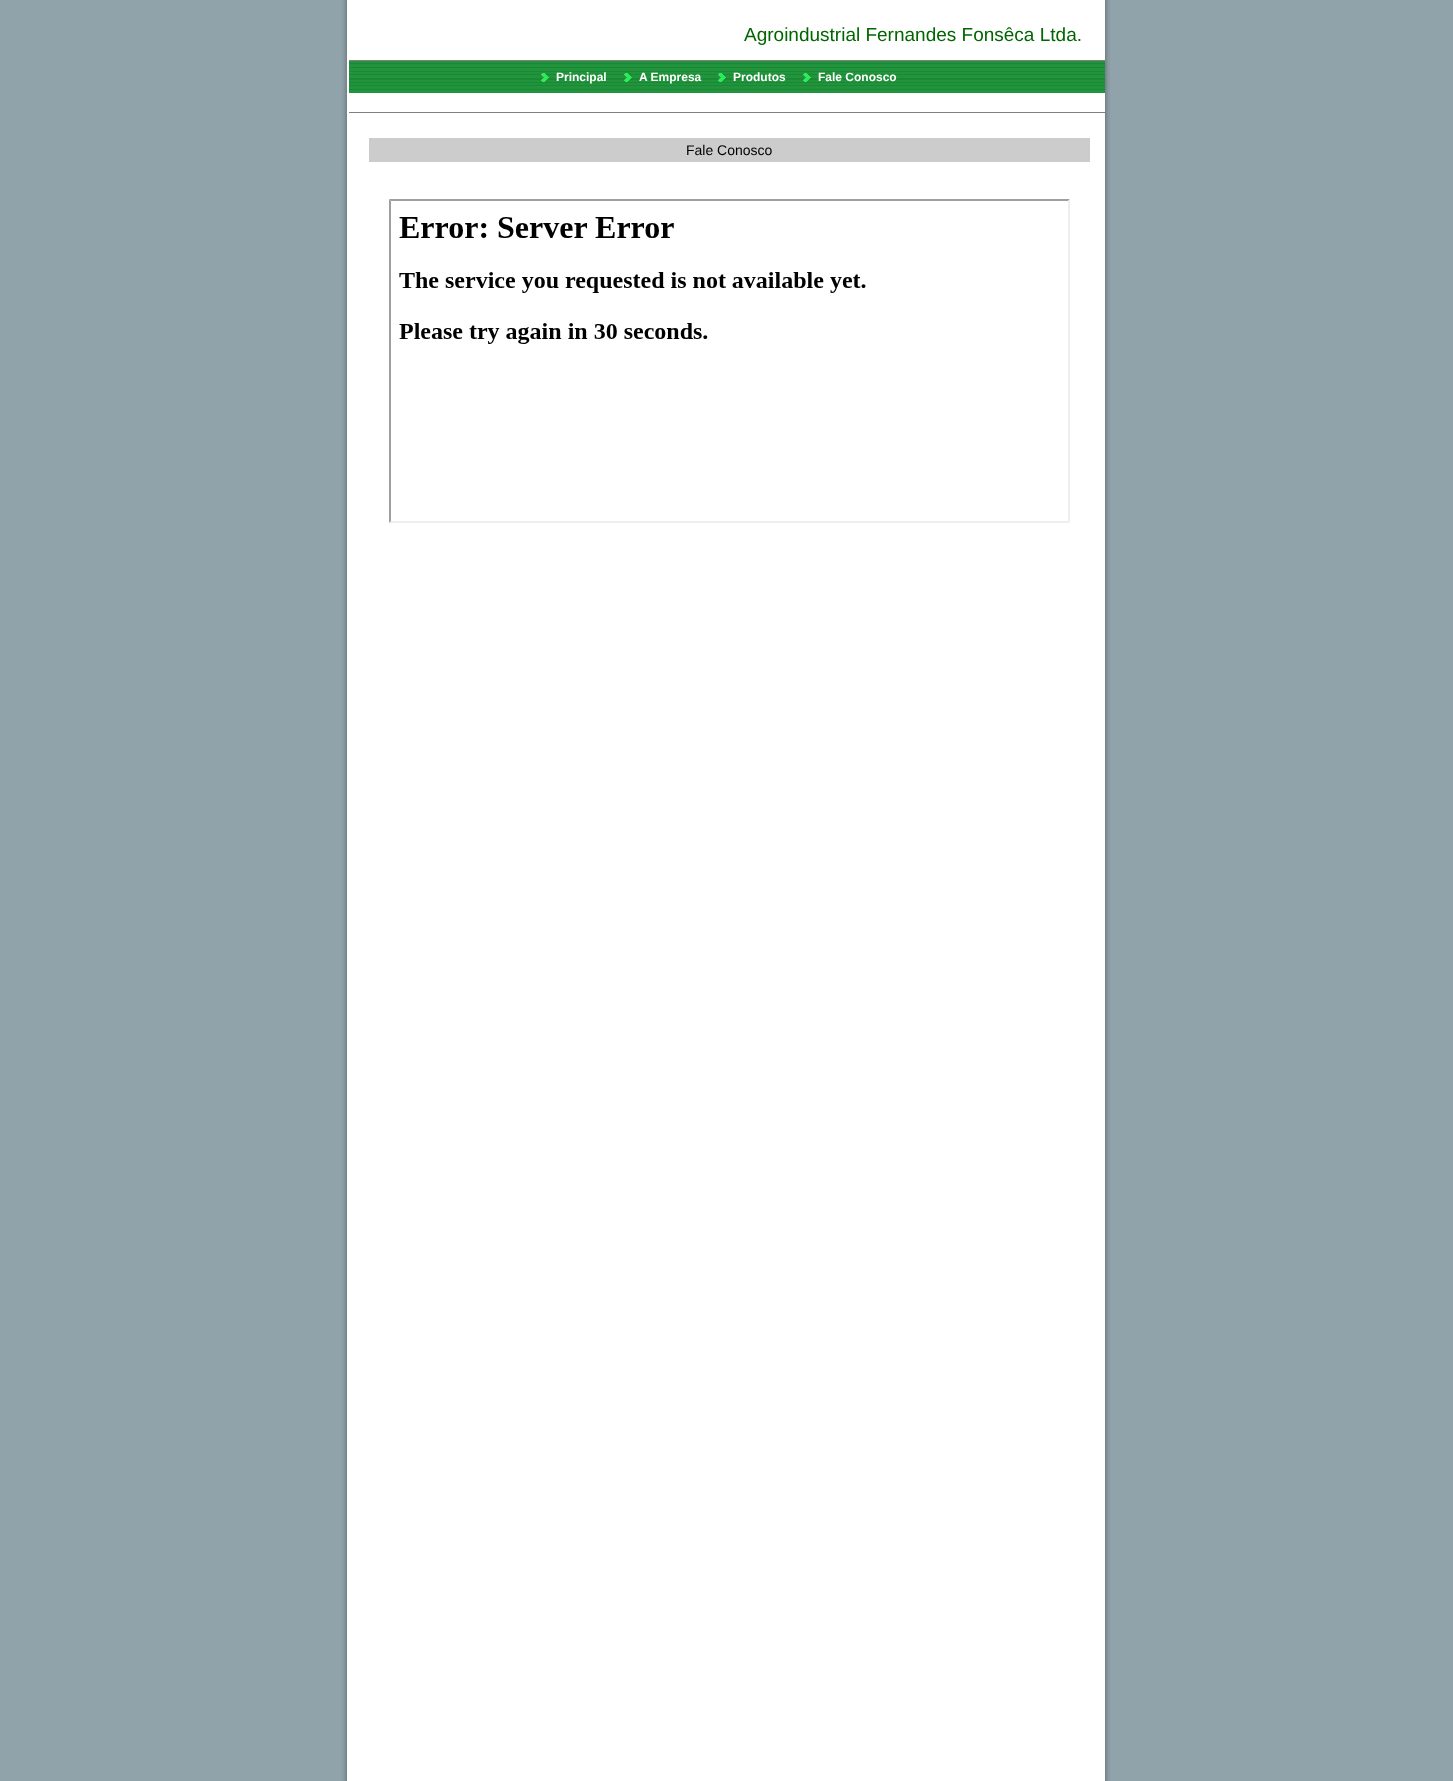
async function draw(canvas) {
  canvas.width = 1453;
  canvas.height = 1781;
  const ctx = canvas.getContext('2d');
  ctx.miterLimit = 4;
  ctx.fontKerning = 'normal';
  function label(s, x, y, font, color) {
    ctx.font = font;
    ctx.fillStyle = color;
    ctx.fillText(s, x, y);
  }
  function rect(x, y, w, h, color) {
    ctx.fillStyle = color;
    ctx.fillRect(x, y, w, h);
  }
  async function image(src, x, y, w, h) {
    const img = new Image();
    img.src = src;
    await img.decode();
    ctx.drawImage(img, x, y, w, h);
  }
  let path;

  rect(0, 0, 1453, 1781, '#90a2aa');
  await image('assets/img1.png', 342, 0, 768, 1781);
  label('Agroindustrial Fernandes Fonsêca Ltda.', 744, 41, '19px Liberation Sans', '#060');
  rect(349, 60, 756, 1, '#808080');
  await image('assets/img2.png', 349, 61, 756, 32);
  await image('assets/img3.png', 541, 73, 8, 9);
  label('Principal', 556, 81, 'bold 12px Liberation Sans', '#fff');
  await image('assets/img3.png', 624, 73, 8, 9);
  label('A Empresa', 639, 81, 'bold 12px Liberation Sans', '#fff');
  await image('assets/img3.png', 718, 73, 8, 9);
  label('Produtos', 733, 81, 'bold 12px Liberation Sans', '#fff');
  await image('assets/img3.png', 803, 73, 8, 9);
  label('Fale Conosco', 818, 81, 'bold 12px Liberation Sans', '#fff');
  rect(349, 112, 756, 1, '#808080');
  rect(369, 138, 721, 24, '#ccc');
  label('Fale Conosco', 686, 155, '14px Liberation Sans', '#000');
  ctx.fillStyle = '#9f9f9f';
  path = new Path2D('M389 199H1070L1068 201H391Z');
  ctx.fill(path);
  ctx.fillStyle = '#eee';
  path = new Path2D('M1070 199V523L1068 521V201Z');
  ctx.fill(path);
  path = new Path2D('M1070 523H389L391 521H1068Z');
  ctx.fill(path);
  ctx.fillStyle = '#9f9f9f';
  path = new Path2D('M389 523V199L391 201V521Z');
  ctx.fill(path);
  await image('assets/img4.png', 399, 217, 467, 127);
}

draw(document.querySelector('canvas'));
